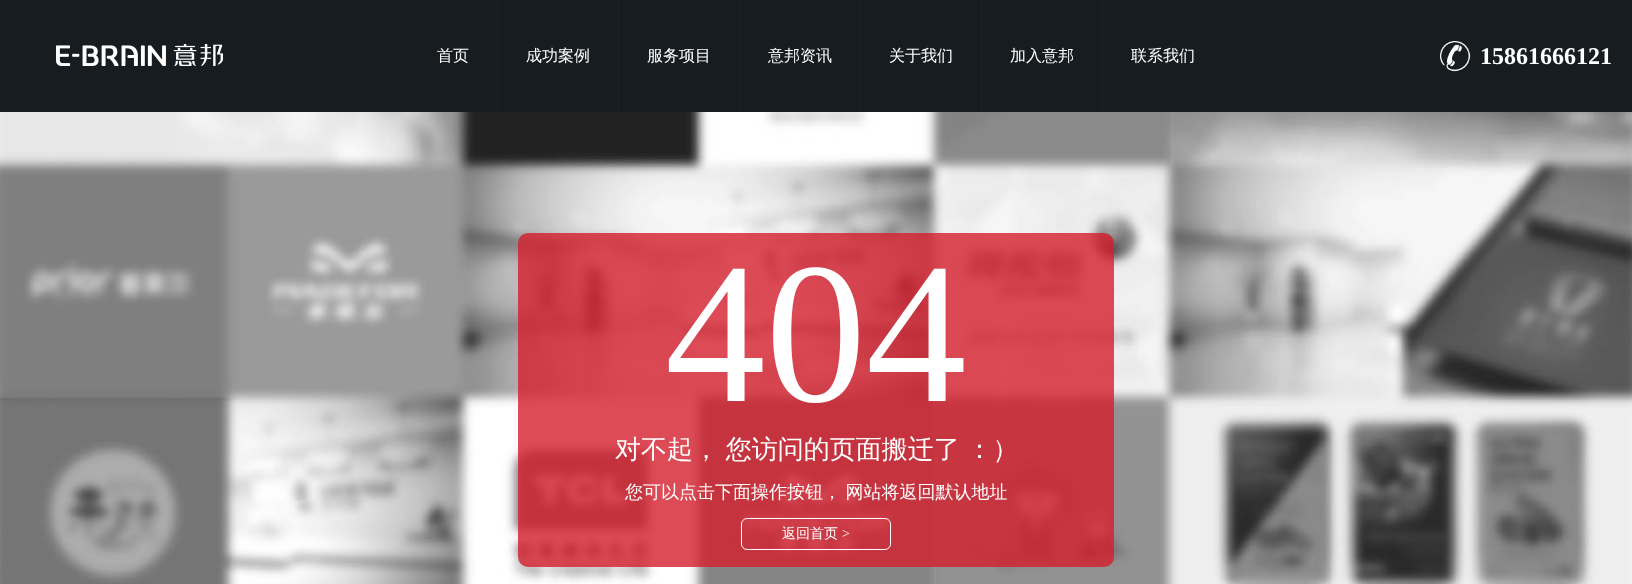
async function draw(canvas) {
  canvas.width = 1632;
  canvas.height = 584;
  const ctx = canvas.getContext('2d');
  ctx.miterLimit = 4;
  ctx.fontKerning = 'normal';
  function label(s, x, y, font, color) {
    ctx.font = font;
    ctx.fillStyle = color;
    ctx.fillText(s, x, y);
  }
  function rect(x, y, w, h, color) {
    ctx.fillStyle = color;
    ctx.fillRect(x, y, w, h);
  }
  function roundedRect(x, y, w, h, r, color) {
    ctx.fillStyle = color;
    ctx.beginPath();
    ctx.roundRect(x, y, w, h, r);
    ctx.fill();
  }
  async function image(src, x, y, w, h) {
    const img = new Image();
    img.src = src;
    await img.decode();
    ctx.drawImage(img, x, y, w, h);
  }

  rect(0, 0, 1632, 584, '#fff');
  rect(0, 0, 1632, 112, '#171c20');
  await image('assets/img1.png', 56, 44, 167, 22);
  rect(497, 0, 1, 112, '#1f2327');
  label('首页', 437, 61, '500 16px WenQuanYi Zen Hei', '#fff');
  rect(618, 0, 1, 112, '#1f2327');
  label('成功案例', 526, 61, '500 16px WenQuanYi Zen Hei', '#fff');
  rect(739, 0, 1, 112, '#1f2327');
  label('服务项目', 647, 61, '500 16px WenQuanYi Zen Hei', '#fff');
  rect(860, 0, 1, 112, '#1f2327');
  label('意邦资讯', 768, 61, '500 16px WenQuanYi Zen Hei', '#fff');
  rect(981, 0, 1, 112, '#1f2327');
  label('关于我们', 889, 61, '500 16px WenQuanYi Zen Hei', '#fff');
  rect(1102, 0, 1, 112, '#1f2327');
  label('加入意邦', 1010, 61, '500 16px WenQuanYi Zen Hei', '#fff');
  label('联系我们', 1131, 61, '500 16px WenQuanYi Zen Hei', '#fff');
  await image('assets/img2.png', 1440, 41, 31, 31);
  label('15861666121', 1480, 64, 'bold 24px Liberation Serif', '#fff');
  await image('assets/img3.png', 0, 112, 1632, 472);
  roundedRect(518, 233, 596, 334, 10, '#d31e2ccc');
  label('404', 665, 401, '201px Liberation Serif', '#fff');
  ctx.wordSpacing = '-1px';
  label('对不起， 您访问的页面搬迁了 ：）', 615, 458, '500 26px WenQuanYi Zen Hei', '#fff');
  label('您可以点击下面操作按钮， 网站将返回默认地址', 625, 498, '500 18px WenQuanYi Zen Hei', '#fff');
  ctx.beginPath();
  ctx.roundRect(741.5, 518.5, 149, 31, 5.5);
  ctx.strokeStyle = '#fff';
  ctx.stroke();
  ctx.wordSpacing = '0px';
  label('返回首页', 782, 538, '500 14px WenQuanYi Zen Hei', '#fff');
  label('>', 842, 538, '14px Liberation Serif', '#fff');
}

draw(document.querySelector('canvas'));
